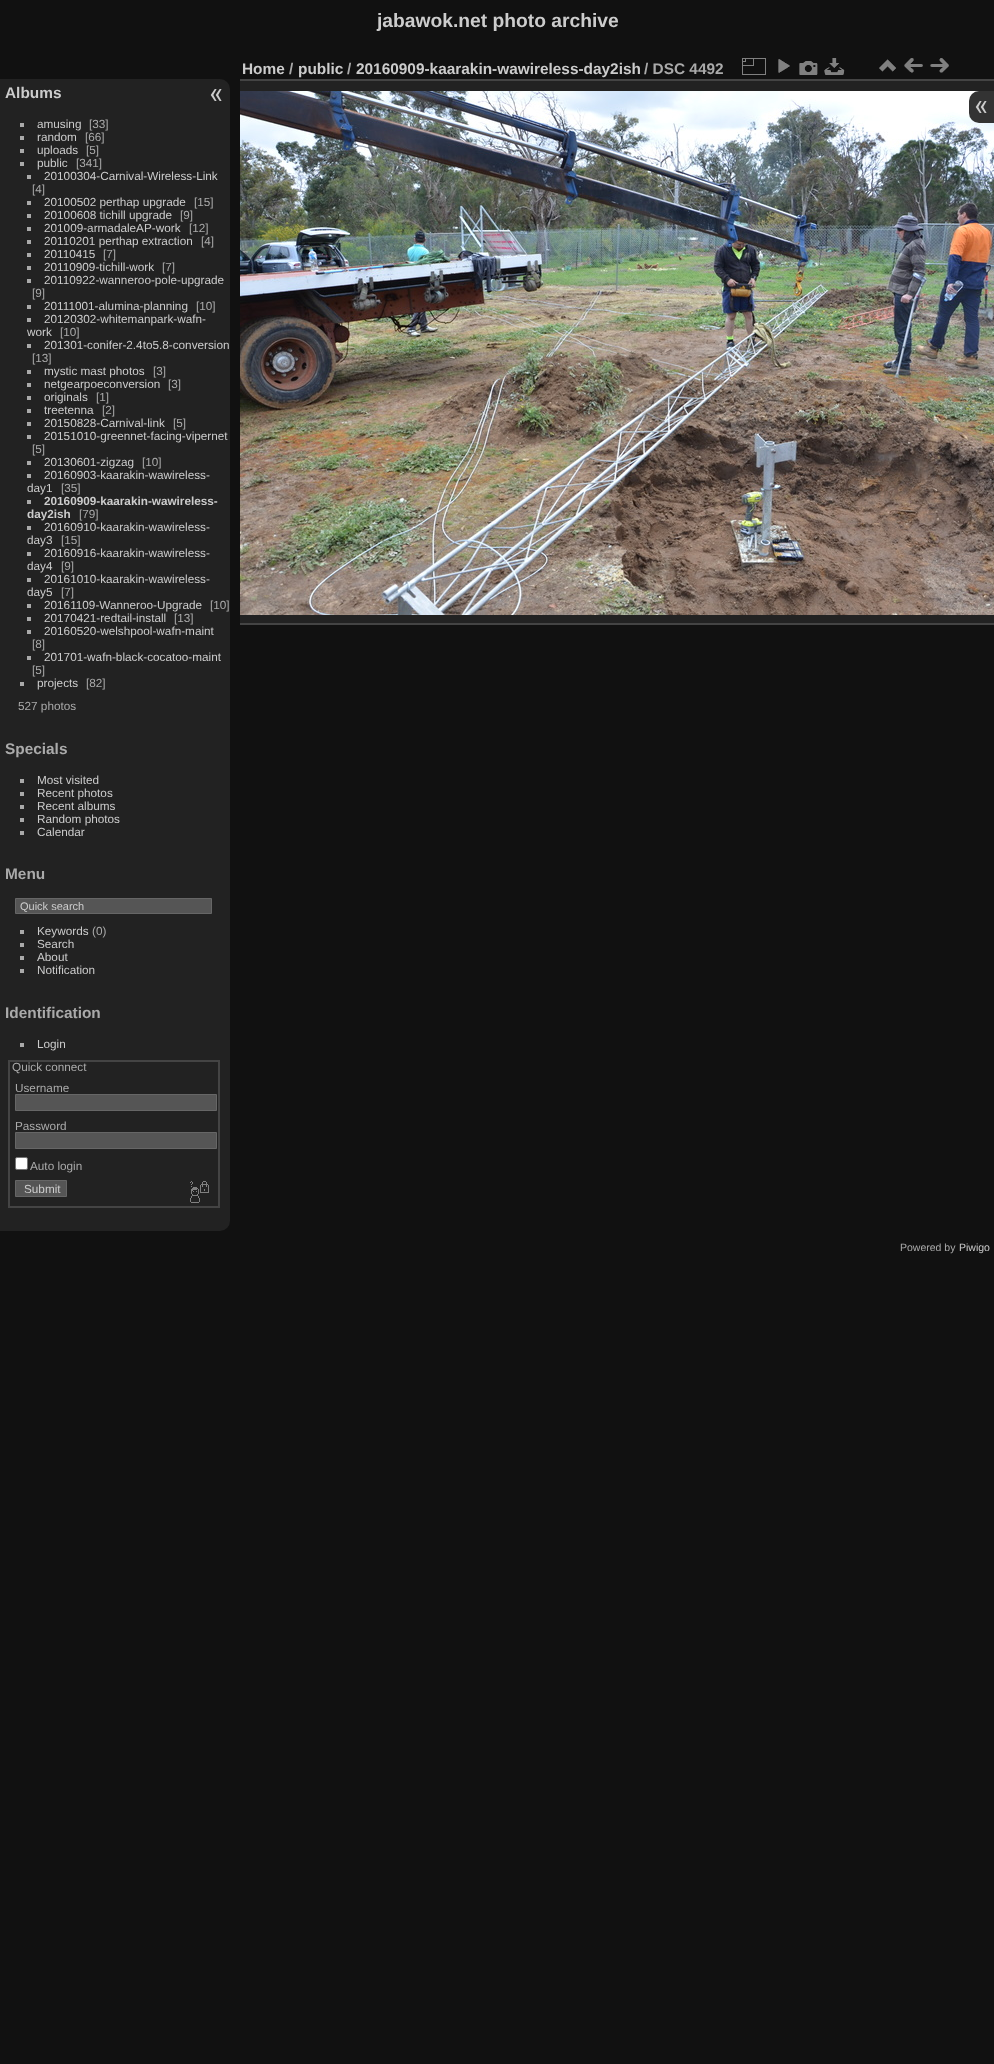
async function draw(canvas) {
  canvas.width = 994;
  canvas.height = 2064;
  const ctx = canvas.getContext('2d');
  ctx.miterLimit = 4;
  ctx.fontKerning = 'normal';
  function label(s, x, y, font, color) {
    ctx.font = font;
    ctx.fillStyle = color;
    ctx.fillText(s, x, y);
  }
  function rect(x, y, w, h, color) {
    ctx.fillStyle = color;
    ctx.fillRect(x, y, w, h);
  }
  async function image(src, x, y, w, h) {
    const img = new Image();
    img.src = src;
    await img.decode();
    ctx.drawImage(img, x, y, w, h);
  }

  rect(0, 0, 994, 2064, '#111');
  label('jabawok.net photo archive', 377, 27, 'bold 19.25px Liberation Sans', '#ccc');
  rect(240, 81, 754, 542, '#222');
  rect(240, 623, 754, 2, '#444');
  rect(240, 79, 754, 2, '#444');
  label('Home', 242, 74, 'bold 15.4px Liberation Sans', '#ccc');
  label('/', 289, 74, 'bold 15.4px Liberation Sans', '#aaa');
  label('public', 298, 74, 'bold 15.4px Liberation Sans', '#ccc');
  label('/', 347, 74, 'bold 15.4px Liberation Sans', '#aaa');
  label('20160909-kaarakin-wawireless-day2ish', 356, 74, 'bold 15.4px Liberation Sans', '#ccc');
  label('/ DSC 4492', 644, 74, 'bold 15.4px Liberation Sans', '#aaa');
  await image('assets/img1.png', 742, 58, 24, 17);
  await image('assets/img2.png', 778, 59, 12, 14);
  await image('assets/img3.png', 799, 61, 19, 14);
  await image('assets/img4.png', 824, 58, 21, 17);
  await image('assets/img5.png', 879, 59, 17, 13);
  await image('assets/img6.png', 904, 58, 19, 15);
  await image('assets/img7.png', 930, 58, 19, 15);
  await image('assets/img8.png', 240, 91, 754, 524);
  ctx.fillStyle = '#333';
  ctx.beginPath();
  ctx.roundRect(969, 91, 25, 32, [10, 0, 0, 10]);
  ctx.fill();
  await image('assets/img9.png', 975, 101, 12, 12);
  ctx.fillStyle = '#222';
  ctx.beginPath();
  ctx.roundRect(0, 79, 230, 1152, [0, 10, 10, 0]);
  ctx.fill();
  label('Albums', 5, 98, 'bold 15.4px Liberation Sans', '#ccc');
  rect(20, 123, 4, 4, '#aaa');
  label('amusing', 37, 128, '11.75px Liberation Sans', '#ccc');
  label('[33]', 89, 128, '11.75px Liberation Sans', '#aaa');
  rect(20, 136, 4, 4, '#aaa');
  label('random', 37, 141, '11.75px Liberation Sans', '#ccc');
  label('[66]', 85, 141, '11.75px Liberation Sans', '#aaa');
  rect(20, 149, 4, 4, '#aaa');
  label('uploads', 37, 154, '11.75px Liberation Sans', '#ccc');
  label('[5]', 86, 154, '11.75px Liberation Sans', '#aaa');
  rect(20, 162, 4, 4, '#aaa');
  label('public', 37, 167, '11.75px Liberation Sans', '#ccc');
  label('[341]', 76, 167, '11.75px Liberation Sans', '#aaa');
  rect(27, 175, 4, 4, '#aaa');
  label('20100304-Carnival-Wireless-Link', 44, 180, '11.75px Liberation Sans', '#ccc');
  label('[4]', 32, 193, '11.75px Liberation Sans', '#aaa');
  rect(27, 201, 4, 4, '#aaa');
  label('20100502 perthap upgrade', 44, 206, '11.75px Liberation Sans', '#ccc');
  label('[15]', 194, 206, '11.75px Liberation Sans', '#aaa');
  rect(27, 214, 4, 4, '#aaa');
  label('20100608 tichill upgrade', 44, 219, '11.75px Liberation Sans', '#ccc');
  label('[9]', 180, 219, '11.75px Liberation Sans', '#aaa');
  rect(27, 227, 4, 4, '#aaa');
  label('201009-armadaleAP-work', 44, 232, '11.75px Liberation Sans', '#ccc');
  label('[12]', 189, 232, '11.75px Liberation Sans', '#aaa');
  rect(27, 240, 4, 4, '#aaa');
  label('20110201 perthap extraction', 44, 245, '11.75px Liberation Sans', '#ccc');
  label('[4]', 201, 245, '11.75px Liberation Sans', '#aaa');
  rect(27, 253, 4, 4, '#aaa');
  label('20110415', 44, 258, '11.75px Liberation Sans', '#ccc');
  label('[7]', 103, 258, '11.75px Liberation Sans', '#aaa');
  rect(27, 266, 4, 4, '#aaa');
  label('20110909-tichill-work', 44, 271, '11.75px Liberation Sans', '#ccc');
  label('[7]', 162, 271, '11.75px Liberation Sans', '#aaa');
  rect(27, 279, 4, 4, '#aaa');
  label('20110922-wanneroo-pole-upgrade', 44, 284, '11.75px Liberation Sans', '#ccc');
  label('[9]', 32, 297, '11.75px Liberation Sans', '#aaa');
  rect(27, 305, 4, 4, '#aaa');
  label('20111001-alumina-planning', 44, 310, '11.75px Liberation Sans', '#ccc');
  label('[10]', 196, 310, '11.75px Liberation Sans', '#aaa');
  rect(27, 318, 4, 4, '#aaa');
  label('20120302-whitemanpark-wafn-', 44, 323, '11.75px Liberation Sans', '#ccc');
  label('work', 27, 336, '11.75px Liberation Sans', '#ccc');
  label('[10]', 60, 336, '11.75px Liberation Sans', '#aaa');
  rect(27, 344, 4, 4, '#aaa');
  label('201301-conifer-2.4to5.8-conversion', 44, 349, '11.75px Liberation Sans', '#ccc');
  label('[13]', 32, 362, '11.75px Liberation Sans', '#aaa');
  rect(27, 370, 4, 4, '#aaa');
  label('mystic mast photos', 44, 375, '11.75px Liberation Sans', '#ccc');
  label('[3]', 153, 375, '11.75px Liberation Sans', '#aaa');
  rect(27, 383, 4, 4, '#aaa');
  label('netgearpoeconversion', 44, 388, '11.75px Liberation Sans', '#ccc');
  label('[3]', 168, 388, '11.75px Liberation Sans', '#aaa');
  rect(27, 396, 4, 4, '#aaa');
  label('originals', 44, 401, '11.75px Liberation Sans', '#ccc');
  label('[1]', 96, 401, '11.75px Liberation Sans', '#aaa');
  rect(27, 409, 4, 4, '#aaa');
  label('treetenna', 44, 414, '11.75px Liberation Sans', '#ccc');
  label('[2]', 102, 414, '11.75px Liberation Sans', '#aaa');
  rect(27, 422, 4, 4, '#aaa');
  label('20150828-Carnival-link', 44, 427, '11.75px Liberation Sans', '#ccc');
  label('[5]', 173, 427, '11.75px Liberation Sans', '#aaa');
  rect(27, 435, 4, 4, '#aaa');
  label('20151010-greennet-facing-vipernet', 44, 440, '11.75px Liberation Sans', '#ccc');
  label('[5]', 32, 453, '11.75px Liberation Sans', '#aaa');
  rect(27, 461, 4, 4, '#aaa');
  label('20130601-zigzag', 44, 466, '11.75px Liberation Sans', '#ccc');
  label('[10]', 142, 466, '11.75px Liberation Sans', '#aaa');
  rect(27, 474, 4, 4, '#aaa');
  label('20160903-kaarakin-wawireless-', 44, 479, '11.75px Liberation Sans', '#ccc');
  label('day1', 27, 492, '11.75px Liberation Sans', '#ccc');
  label('[35]', 61, 492, '11.75px Liberation Sans', '#aaa');
  rect(27, 500, 4, 4, '#aaa');
  label('20160909-kaarakin-wawireless-', 44, 505, 'bold 11.75px Liberation Sans', '#ccc');
  label('day2ish', 27, 518, 'bold 11.75px Liberation Sans', '#ccc');
  label('[79]', 79, 518, '11.75px Liberation Sans', '#aaa');
  rect(27, 526, 4, 4, '#aaa');
  label('20160910-kaarakin-wawireless-', 44, 531, '11.75px Liberation Sans', '#ccc');
  label('day3', 27, 544, '11.75px Liberation Sans', '#ccc');
  label('[15]', 61, 544, '11.75px Liberation Sans', '#aaa');
  rect(27, 552, 4, 4, '#aaa');
  label('20160916-kaarakin-wawireless-', 44, 557, '11.75px Liberation Sans', '#ccc');
  label('day4', 27, 570, '11.75px Liberation Sans', '#ccc');
  label('[9]', 61, 570, '11.75px Liberation Sans', '#aaa');
  rect(27, 578, 4, 4, '#aaa');
  label('20161010-kaarakin-wawireless-', 44, 583, '11.75px Liberation Sans', '#ccc');
  label('day5', 27, 596, '11.75px Liberation Sans', '#ccc');
  label('[7]', 61, 596, '11.75px Liberation Sans', '#aaa');
  rect(27, 604, 4, 4, '#aaa');
  label('20161109-Wanneroo-Upgrade', 44, 609, '11.75px Liberation Sans', '#ccc');
  label('[10]', 210, 609, '11.75px Liberation Sans', '#aaa');
  rect(27, 617, 4, 4, '#aaa');
  label('20170421-redtail-install', 44, 622, '11.75px Liberation Sans', '#ccc');
  label('[13]', 174, 622, '11.75px Liberation Sans', '#aaa');
  rect(27, 630, 4, 4, '#aaa');
  label('20160520-welshpool-wafn-maint', 44, 635, '11.75px Liberation Sans', '#ccc');
  label('[8]', 32, 648, '11.75px Liberation Sans', '#aaa');
  rect(27, 656, 4, 4, '#aaa');
  label('201701-wafn-black-cocatoo-maint', 44, 661, '11.75px Liberation Sans', '#ccc');
  label('[5]', 32, 674, '11.75px Liberation Sans', '#aaa');
  rect(20, 682, 4, 4, '#aaa');
  label('projects', 37, 687, '11.75px Liberation Sans', '#ccc');
  label('[82]', 86, 687, '11.75px Liberation Sans', '#aaa');
  label('527 photos', 18, 710, '11.75px Liberation Sans', '#aaa');
  label('Specials', 5, 754, 'bold 15.4px Liberation Sans', '#aaa');
  rect(20, 779, 4, 4, '#aaa');
  label('Most visited', 37, 784, '11.75px Liberation Sans', '#ccc');
  rect(20, 792, 4, 4, '#aaa');
  label('Recent photos', 37, 797, '11.75px Liberation Sans', '#ccc');
  rect(20, 805, 4, 4, '#aaa');
  label('Recent albums', 37, 810, '11.75px Liberation Sans', '#ccc');
  rect(20, 818, 4, 4, '#aaa');
  label('Random photos', 37, 823, '11.75px Liberation Sans', '#ccc');
  rect(20, 831, 4, 4, '#aaa');
  label('Calendar', 37, 836, '11.75px Liberation Sans', '#ccc');
  label('Menu', 5, 879, 'bold 15.4px Liberation Sans', '#aaa');
  ctx.fillStyle = '#555';
  ctx.beginPath();
  ctx.rect(15.5, 898.5, 196, 15);
  ctx.fill();
  ctx.strokeStyle = '#666';
  ctx.stroke();
  label('Quick search', 20, 910, '11px Liberation Sans', '#ccc');
  rect(20, 930, 4, 4, '#aaa');
  label('Keywords', 37, 935, '11.75px Liberation Sans', '#ccc');
  label('(0)', 92, 935, '11.75px Liberation Sans', '#aaa');
  rect(20, 943, 4, 4, '#aaa');
  label('Search', 37, 948, '11.75px Liberation Sans', '#ccc');
  rect(20, 956, 4, 4, '#aaa');
  label('About', 37, 961, '11.75px Liberation Sans', '#ccc');
  rect(20, 969, 4, 4, '#aaa');
  label('Notification', 37, 974, '11.75px Liberation Sans', '#ccc');
  label('Identification', 5, 1018, 'bold 15.4px Liberation Sans', '#aaa');
  rect(20, 1043, 4, 4, '#aaa');
  label('Login', 37, 1048, '11.75px Liberation Sans', '#ccc');
  ctx.strokeStyle = '#444';
  ctx.lineWidth = 2;
  ctx.strokeRect(9, 1061, 210, 146);
  label('Quick connect', 12, 1071, '11.75px Liberation Sans', '#aaa');
  label('Username', 15, 1092, '11.75px Liberation Sans', '#aaa');
  ctx.fillStyle = '#555';
  ctx.beginPath();
  ctx.rect(15.5, 1094.5, 201, 16);
  ctx.fill();
  ctx.strokeStyle = '#666';
  ctx.lineWidth = 1;
  ctx.stroke();
  label('Password', 15, 1130, '11.75px Liberation Sans', '#aaa');
  ctx.fillStyle = '#555';
  ctx.beginPath();
  ctx.rect(15.5, 1132.5, 201, 16);
  ctx.fill();
  ctx.stroke();
  ctx.fillStyle = '#fff';
  ctx.beginPath();
  ctx.roundRect(15.5, 1157.5, 12, 12, 1.5);
  ctx.fill();
  ctx.strokeStyle = '#767676';
  ctx.stroke();
  label('Auto login', 30, 1170, '11.75px Liberation Sans', '#aaa');
  ctx.fillStyle = '#555';
  ctx.beginPath();
  ctx.rect(15.5, 1180.5, 51, 16);
  ctx.fill();
  ctx.strokeStyle = '#666';
  ctx.stroke();
  label('Submit', 24, 1193, '11.75px Liberation Sans', '#ccc');
  await image('assets/img10.png', 190, 1181, 19, 22);
  await image('assets/img11.png', 210, 89, 12, 12);
  label('Powered by', 900, 1251, '10.5px Liberation Sans', '#aaa');
  label('Piwigo', 959, 1251, '10.5px Liberation Sans', '#ccc');
}

draw(document.querySelector('canvas'));
